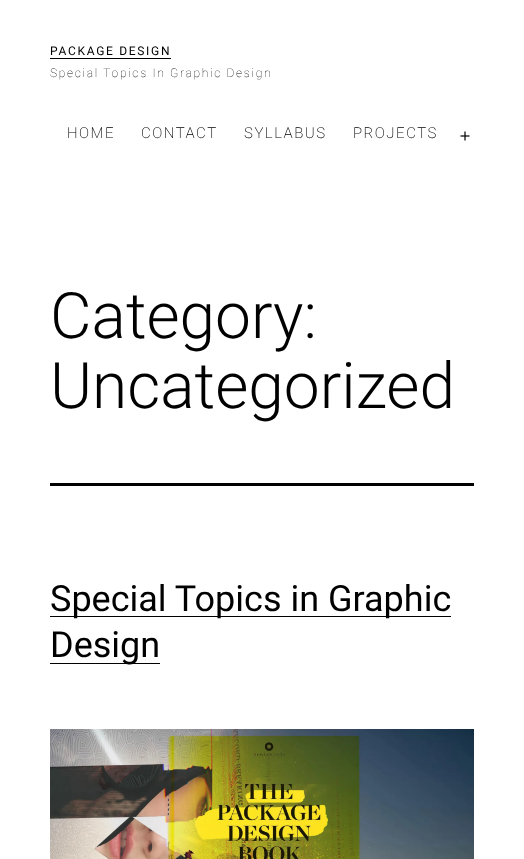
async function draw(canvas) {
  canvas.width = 524;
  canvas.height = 859;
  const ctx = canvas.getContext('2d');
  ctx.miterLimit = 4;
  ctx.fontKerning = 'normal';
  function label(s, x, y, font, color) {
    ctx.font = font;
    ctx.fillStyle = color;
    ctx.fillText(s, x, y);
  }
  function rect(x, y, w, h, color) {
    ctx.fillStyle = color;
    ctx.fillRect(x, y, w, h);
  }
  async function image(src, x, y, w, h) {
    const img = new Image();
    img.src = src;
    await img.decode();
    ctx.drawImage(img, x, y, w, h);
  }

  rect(0, 0, 524, 859, '#fff');
  ctx.letterSpacing = '1.7px';
  label('PACKAGE DESIGN', 50, 55, '12px Roboto', '#000');
  rect(50, 58, 121, 1, '#000');
  label('Special Topics In Graphic Design', 50, 77, '100 12px Roboto', '#000');
  ctx.letterSpacing = '1.5px';
  label('HOME', 67, 138, '200 15px Roboto', '#000');
  label('CONTACT', 141, 138, '200 15px Roboto', '#000');
  label('SYLLABUS', 244, 138, '200 15px Roboto', '#000');
  label('PROJECTS', 353, 138, '200 15px Roboto', '#000');
  await image('assets/img1.png', 460, 131, 10, 10);
  rect(50, 483, 424, 3, '#000');
  ctx.letterSpacing = '0px';
  label('Category:', 50, 338, '300 64px Roboto', '#000');
  label('Uncategorized', 50, 408, '300 64px Roboto', '#000');
  rect(50, 616, 401, 1, '#000');
  label('Special Topics in Graphic', 50, 611, '36px Roboto', '#000');
  rect(50, 663, 110, 1, '#000');
  label('Design', 50, 657, '36px Roboto', '#000');
  await image('assets/img2.png', 50, 729, 424, 130);
}

draw(document.querySelector('canvas'));
